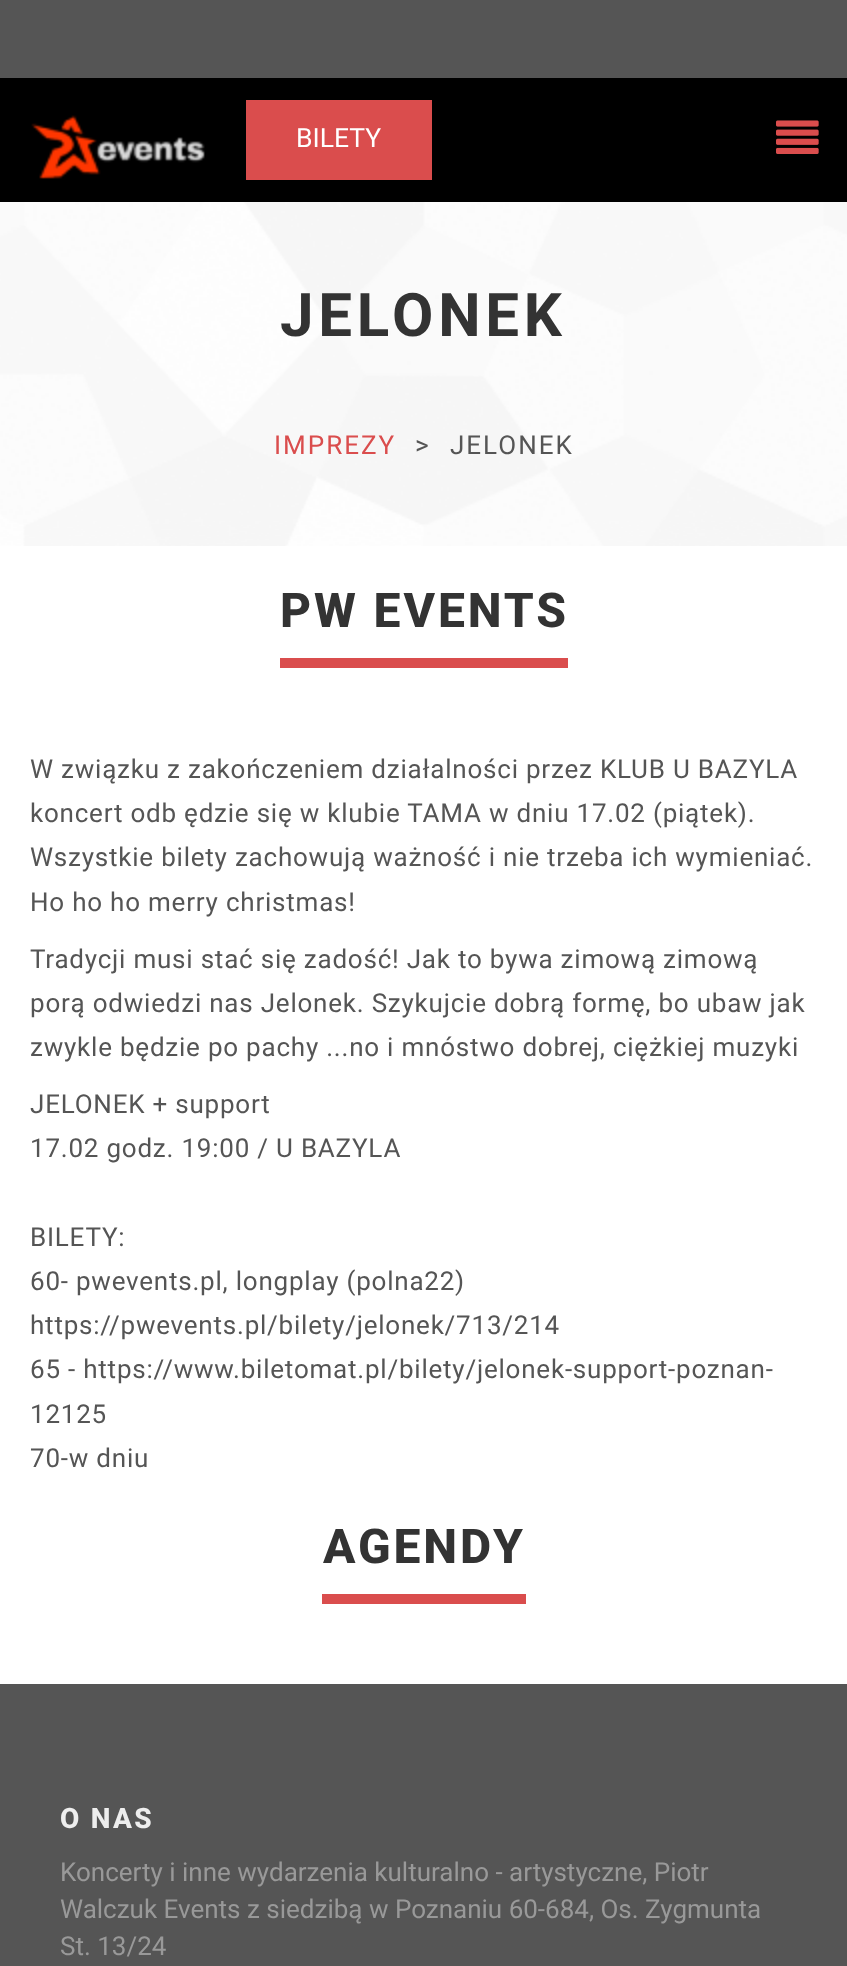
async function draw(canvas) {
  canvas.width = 847;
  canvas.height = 1966;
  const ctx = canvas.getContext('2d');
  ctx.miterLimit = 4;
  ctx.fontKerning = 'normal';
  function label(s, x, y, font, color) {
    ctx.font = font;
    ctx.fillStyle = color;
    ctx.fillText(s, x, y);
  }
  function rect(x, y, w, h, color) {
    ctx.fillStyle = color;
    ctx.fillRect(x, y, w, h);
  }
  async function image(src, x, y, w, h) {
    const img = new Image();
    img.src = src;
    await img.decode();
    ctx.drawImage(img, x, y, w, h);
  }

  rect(0, 0, 847, 1966, '#555');
  rect(0, 78, 847, 124, '#000');
  await image('assets/img1.png', 31, 115, 174, 64);
  rect(246, 100, 186, 80, '#da4d4d');
  label('BILETY', 296, 147, '26.5px Roboto', '#fff');
  await image('assets/img2.png', 776, 120, 43, 34);
  await image('assets/img3.png', 0, 202, 847, 344);
  ctx.letterSpacing = '4.75px';
  label('JELONEK', 280, 336, 'bold 60px Roboto', '#333');
  ctx.letterSpacing = '2px';
  label('IMPREZY', 274, 454, '26px Roboto', '#da4d4d');
  label('>', 415, 454, '26px Roboto', '#555');
  label('JELONEK', 450, 454, '26px Roboto', '#555');
  rect(0, 546, 847, 1138, '#fff');
  rect(280, 658, 288, 10, '#da4d4d');
  ctx.letterSpacing = '2.9px';
  label('PW EVENTS', 280, 627, '800 48px Roboto', '#333');
  ctx.letterSpacing = '0.78px';
  label('W związku z zakończeniem działalności przez KLUB U BAZYLA', 30, 778, '26px Roboto', '#555');
  label('koncert odb ędzie się w klubie TAMA w dniu 17.02 (piątek).', 30, 822, '26px Roboto', '#555');
  label('Wszystkie bilety zachowują ważność i nie trzeba ich wymieniać.', 30, 866, '26px Roboto', '#555');
  label('Ho ho ho merry christmas!', 30, 911, '26px Roboto', '#555');
  label('Tradycji musi stać się zadość! Jak to bywa zimową zimową', 30, 968, '26px Roboto', '#555');
  label('porą odwiedzi nas Jelonek. Szykujcie dobrą formę, bo ubaw jak', 30, 1012, '26px Roboto', '#555');
  label('zwykle będzie po pachy ...no i mnóstwo dobrej, ciężkiej muzyki', 30, 1056, '26px Roboto', '#555');
  label('JELONEK + support', 30, 1113, '26px Roboto', '#555');
  label('17.02 godz. 19:00 / U BAZYLA', 30, 1157, '26px Roboto', '#555');
  label('BILETY:', 30, 1246, '26px Roboto', '#555');
  label('60- pwevents.pl, longplay (polna22)', 30, 1290, '26px Roboto', '#555');
  label('https://pwevents.pl/bilety/jelonek/713/214', 30, 1334, '26px Roboto', '#555');
  label('65 - https://www.biletomat.pl/bilety/jelonek-support-poznan-', 30, 1378, '26px Roboto', '#555');
  label('12125', 30, 1423, '26px Roboto', '#555');
  label('70-w dniu', 30, 1467, '26px Roboto', '#555');
  rect(322, 1594, 204, 10, '#da4d4d');
  ctx.letterSpacing = '2.9px';
  label('AGENDY', 323, 1563, '800 48px Roboto', '#333');
  ctx.letterSpacing = '2.25px';
  label('O NAS', 60, 1828, '800 28px Roboto', '#eee');
  ctx.letterSpacing = '0px';
  label('Koncerty i inne wydarzenia kulturalno - artystyczne, Piotr', 60, 1881, '26px Roboto', '#999');
  label('Walczuk Events z siedzibą w Poznaniu 60-684, Os. Zygmunta', 60, 1918, '26px Roboto', '#999');
  label('St. 13/24', 60, 1955, '26px Roboto', '#999');
}

draw(document.querySelector('canvas'));
